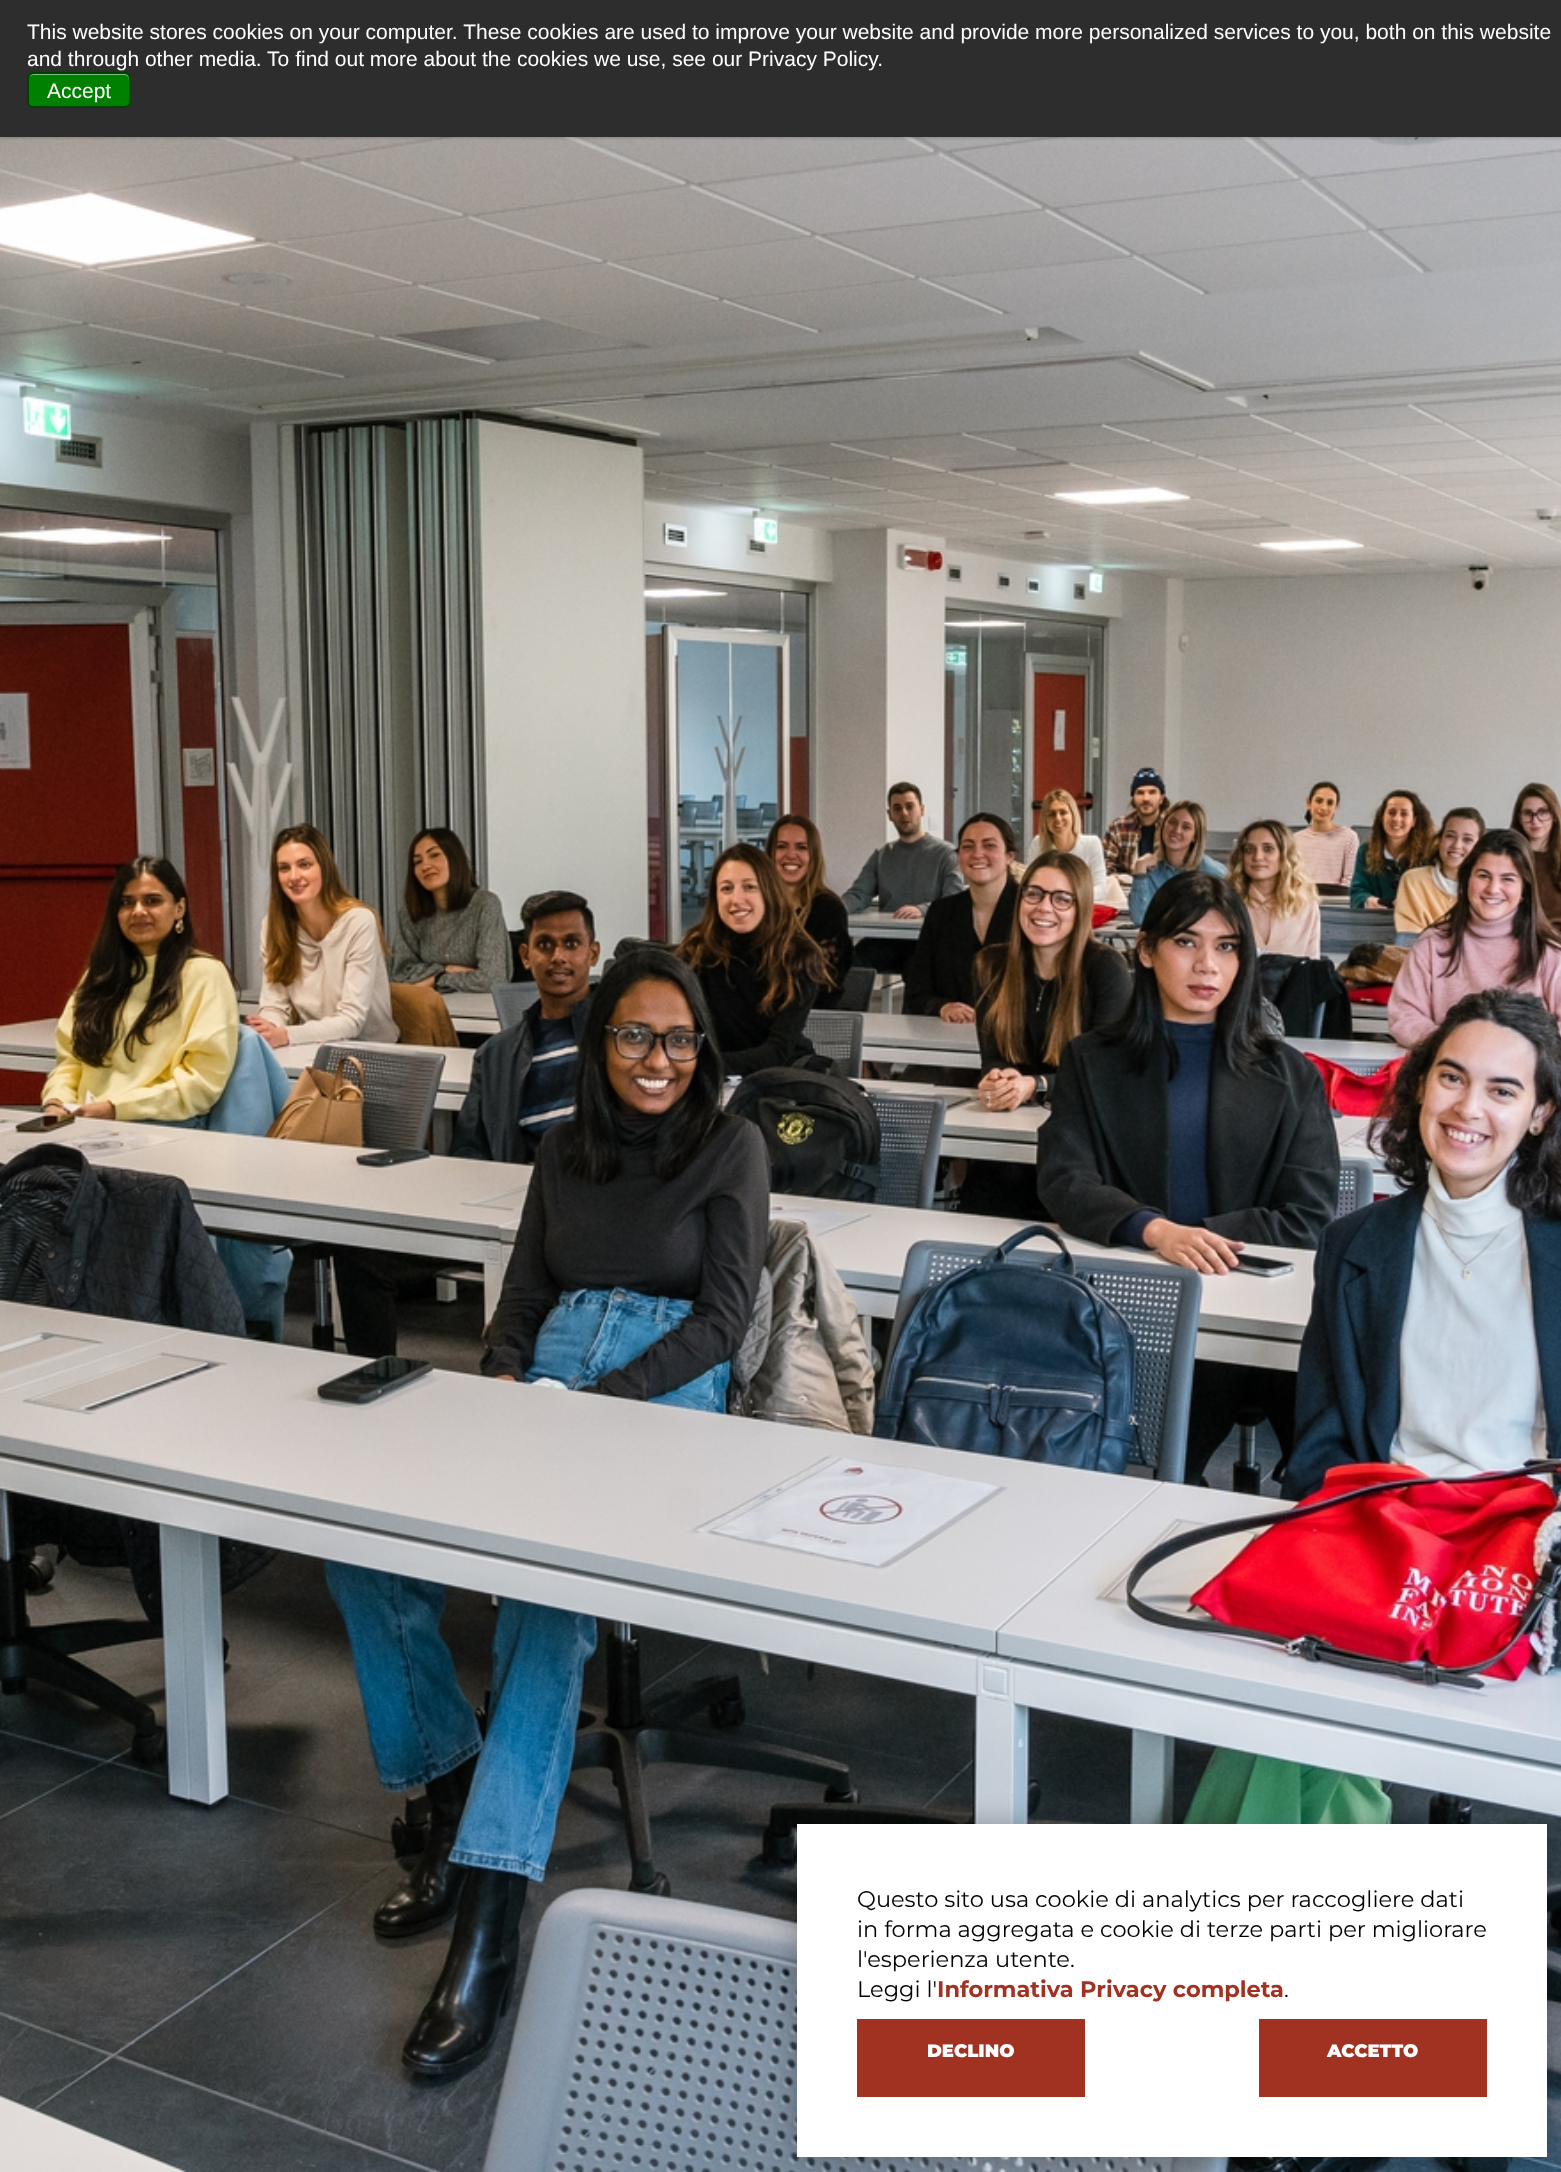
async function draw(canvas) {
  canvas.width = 1561;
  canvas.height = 2172;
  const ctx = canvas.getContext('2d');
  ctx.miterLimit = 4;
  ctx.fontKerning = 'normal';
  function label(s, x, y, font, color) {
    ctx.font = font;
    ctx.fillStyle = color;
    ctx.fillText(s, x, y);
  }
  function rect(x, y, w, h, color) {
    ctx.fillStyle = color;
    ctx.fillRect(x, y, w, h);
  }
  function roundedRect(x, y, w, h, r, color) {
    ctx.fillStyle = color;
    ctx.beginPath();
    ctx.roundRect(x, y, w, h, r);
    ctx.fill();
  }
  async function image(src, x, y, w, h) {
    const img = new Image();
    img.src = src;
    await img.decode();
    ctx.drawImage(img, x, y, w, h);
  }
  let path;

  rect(0, 0, 1561, 2172, '#fff');
  await image('assets/img1.png', 0, 137, 1561, 2035);
  ctx.fillStyle = '#00000033';
  ctx.filter = 'blur(1.5px)';
  ctx.beginPath();
  ctx.rect(0, 2, 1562, 136);
  ctx.fill();
  ctx.filter = 'none';
  rect(0, 0, 1561, 137, '#2d2d2d');
  label('This website stores cookies on your computer. These cookies are used to improve your website and provide more personalized services to you, both on this website', 27, 39, '21px Liberation Sans', '#fff');
  label('and through other media. To find out more about the cookies we use, see our Privacy Policy.', 27, 66, '21px Liberation Sans', '#fff');
  roundedRect(27, 72, 104, 36, 6, '#008000');
  ctx.fillStyle = '#80c080';
  path = new Path2D('M33 75H124C127 75 129 77 129 80V79C129 76 127 74 124 74H34C32 74 31 75 30 76Z');
  ctx.fill(path);
  ctx.beginPath();
  ctx.roundRect(28, 73, 102, 34, 5);
  ctx.strokeStyle = '#00000080';
  ctx.lineWidth = 2;
  ctx.stroke();
  label('Accept', 47, 98, '21px Liberation Sans', '#fff');
  ctx.fillStyle = '#0000004f';
  ctx.filter = 'blur(15px)';
  ctx.beginPath();
  ctx.rect(797, 1824, 750, 333);
  ctx.fill();
  ctx.filter = 'none';
  rect(797, 1824, 750, 333, '#fff');
  label('Questo sito usa cookie di analytics per raccogliere dati', 857, 1907, '22.5px Montserrat', '#000');
  label('in forma aggregata e cookie di terze parti per migliorare', 857, 1937, '22.5px Montserrat', '#000');
  label('l\'esperienza utente.', 857, 1967, '22.5px Montserrat', '#000');
  label('Leggi l\'', 857, 1997, '22.5px Montserrat', '#000');
  label('Informativa Privacy completa', 937, 1997, 'bold 22.5px Montserrat', '#a13221');
  label('.', 1284, 1997, '22.5px Montserrat', '#000');
  rect(857, 2019, 228, 78, '#a13221');
  label('DECLINO', 927, 2057, '900 18px Montserrat', '#fff');
  rect(1259, 2019, 228, 78, '#a13221');
  label('ACCETTO', 1327, 2057, '900 18px Montserrat', '#fff');
}

draw(document.querySelector('canvas'));
